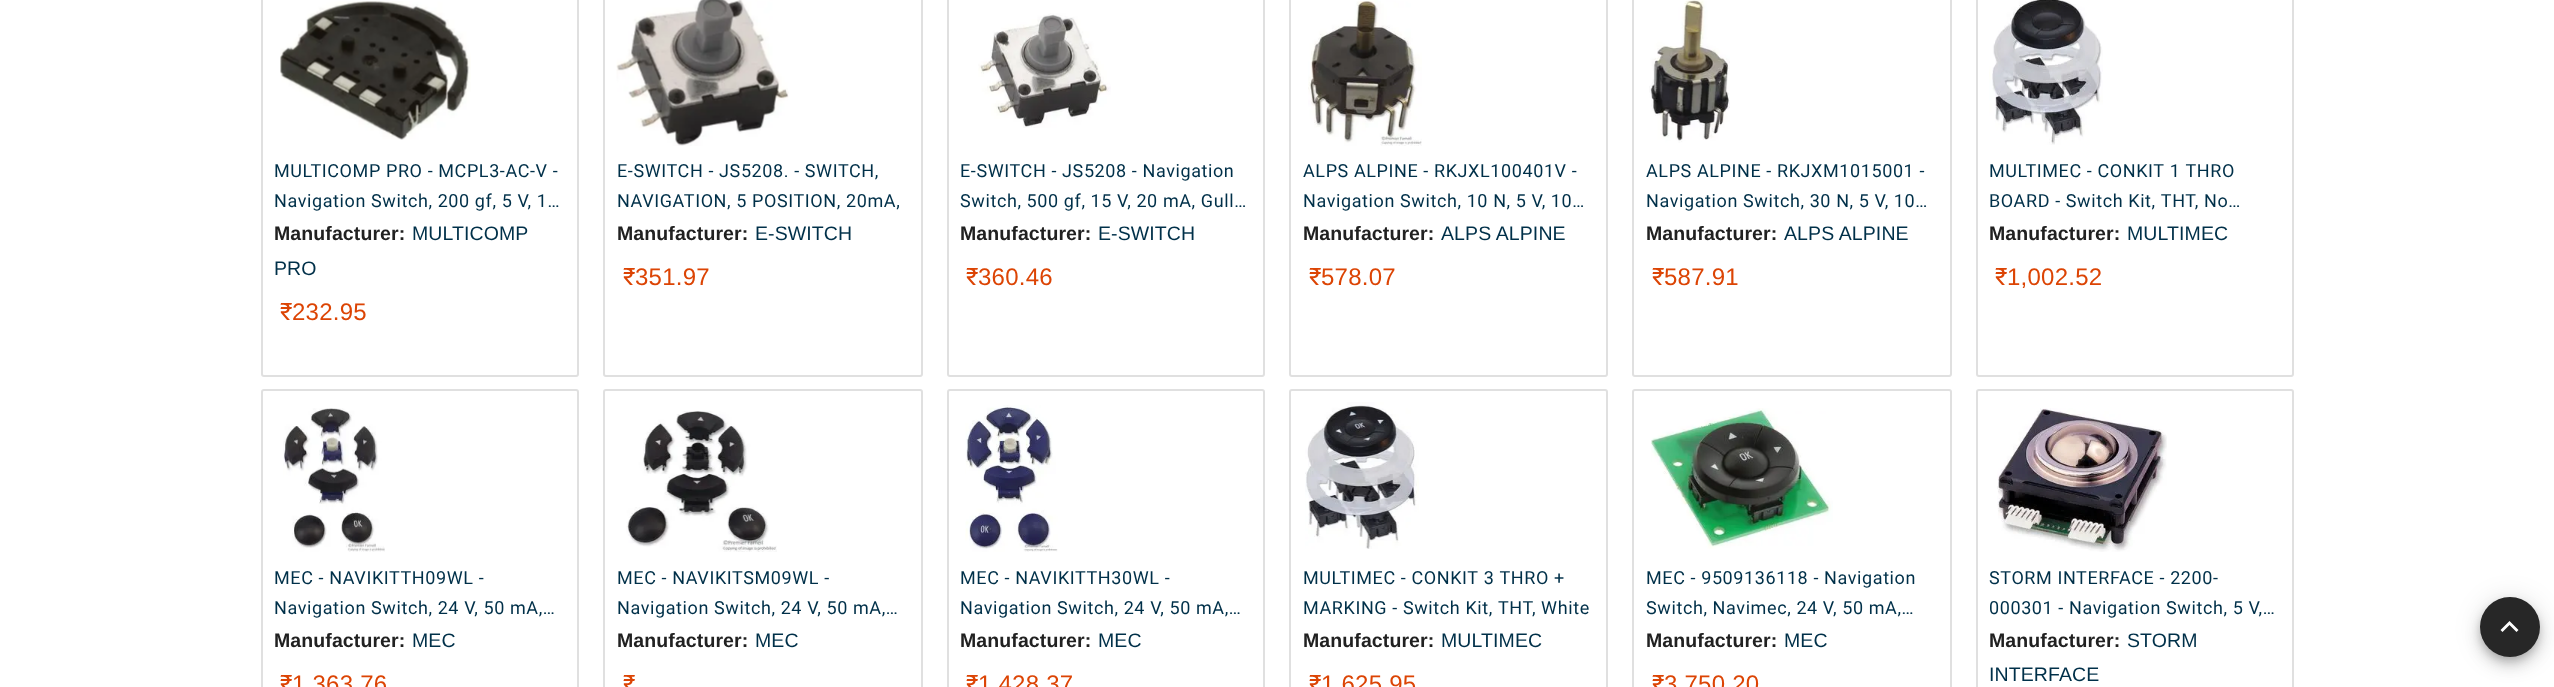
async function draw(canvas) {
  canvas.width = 2554;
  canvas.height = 687;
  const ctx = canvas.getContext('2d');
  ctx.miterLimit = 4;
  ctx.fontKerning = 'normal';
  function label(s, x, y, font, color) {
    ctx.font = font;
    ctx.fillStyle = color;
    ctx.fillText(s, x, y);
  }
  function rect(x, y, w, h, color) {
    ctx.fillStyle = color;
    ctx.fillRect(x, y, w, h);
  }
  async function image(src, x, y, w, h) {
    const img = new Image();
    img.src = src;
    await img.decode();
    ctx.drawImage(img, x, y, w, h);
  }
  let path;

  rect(0, 0, 2554, 687, '#fff');
  ctx.beginPath();
  ctx.roundRect(262, -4, 316, 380, 2);
  ctx.strokeStyle = '#e0e0e0';
  ctx.lineWidth = 2;
  ctx.stroke();
  await image('assets/img1.png', 280, 1, 191, 139);
  ctx.letterSpacing = '0.6px';
  label('MULTICOMP PRO - MCPL3-AC-V -', 274, 177, '18px Roboto', '#003049');
  label('Navigation Switch, 200 gf, 5 V, 1…', 274, 207, '18px Roboto', '#003049');
  ctx.letterSpacing = '0.1px';
  label('Manufacturer:', 274, 240, 'bold 19.5px Liberation Sans', '#212121');
  label('MULTICOMP', 412, 240, '19.5px Liberation Sans', '#003049');
  label('PRO', 274, 275, '19.5px Liberation Sans', '#003049');
  ctx.letterSpacing = '0.25px';
  label('₹', 280, 320, '24px Roboto', '#dc4404');
  label('232.95', 292, 320, '24px Liberation Sans', '#dc4404');
  ctx.beginPath();
  ctx.roundRect(604, -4, 318, 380, 2);
  ctx.stroke();
  await image('assets/img2.png', 616, 0, 173, 146);
  ctx.letterSpacing = '0.6px';
  label('E-SWITCH - JS5208. - SWITCH,', 617, 177, '18px Roboto', '#003049');
  label('NAVIGATION, 5 POSITION, 20mA,', 617, 207, '18px Roboto', '#003049');
  ctx.letterSpacing = '0.1px';
  label('Manufacturer:', 617, 240, 'bold 19.5px Liberation Sans', '#212121');
  label('E-SWITCH', 755, 240, '19.5px Liberation Sans', '#003049');
  ctx.letterSpacing = '0.25px';
  label('₹', 623, 285, '24px Roboto', '#dc4404');
  label('351.97', 635, 285, '24px Liberation Sans', '#dc4404');
  ctx.beginPath();
  ctx.roundRect(948, -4, 316, 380, 2);
  ctx.stroke();
  await image('assets/img3.png', 978, 13, 133, 115);
  ctx.letterSpacing = '0.6px';
  label('E-SWITCH - JS5208 - Navigation', 960, 177, '18px Roboto', '#003049');
  label('Switch, 500 gf, 15 V, 20 mA, Gull…', 960, 207, '18px Roboto', '#003049');
  ctx.letterSpacing = '0.1px';
  label('Manufacturer:', 960, 240, 'bold 19.5px Liberation Sans', '#212121');
  label('E-SWITCH', 1098, 240, '19.5px Liberation Sans', '#003049');
  ctx.letterSpacing = '0.25px';
  label('₹', 966, 285, '24px Roboto', '#dc4404');
  label('360.46', 978, 285, '24px Liberation Sans', '#dc4404');
  ctx.beginPath();
  ctx.roundRect(1290, -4, 317, 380, 2);
  ctx.stroke();
  await image('assets/img4.png', 1308, 0, 114, 146);
  ctx.letterSpacing = '0.6px';
  label('ALPS ALPINE - RKJXL100401V -', 1303, 177, '18px Roboto', '#003049');
  label('Navigation Switch, 10 N, 5 V, 10…', 1303, 207, '18px Roboto', '#003049');
  ctx.letterSpacing = '0.1px';
  label('Manufacturer:', 1303, 240, 'bold 19.5px Liberation Sans', '#212121');
  label('ALPS ALPINE', 1441, 240, '19.5px Liberation Sans', '#003049');
  ctx.letterSpacing = '0.25px';
  label('₹', 1309, 285, '24px Roboto', '#dc4404');
  label('578.07', 1321, 285, '24px Liberation Sans', '#dc4404');
  ctx.beginPath();
  ctx.roundRect(1633, -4, 318, 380, 2);
  ctx.stroke();
  await image('assets/img5.png', 1649, 0, 81, 143);
  ctx.letterSpacing = '0.6px';
  label('ALPS ALPINE - RKJXM1015001 -', 1646, 177, '18px Roboto', '#003049');
  label('Navigation Switch, 30 N, 5 V, 10…', 1646, 207, '18px Roboto', '#003049');
  ctx.letterSpacing = '0.1px';
  label('Manufacturer:', 1646, 240, 'bold 19.5px Liberation Sans', '#212121');
  label('ALPS ALPINE', 1784, 240, '19.5px Liberation Sans', '#003049');
  ctx.letterSpacing = '0.25px';
  label('₹', 1652, 285, '24px Roboto', '#dc4404');
  label('587.91', 1664, 285, '24px Liberation Sans', '#dc4404');
  ctx.beginPath();
  ctx.roundRect(1977, -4, 316, 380, 2);
  ctx.stroke();
  await image('assets/img6.png', 1989, 0, 114, 145);
  ctx.letterSpacing = '0.6px';
  label('MULTIMEC - CONKIT 1 THRO', 1989, 177, '18px Roboto', '#003049');
  label('BOARD - Switch Kit, THT, No…', 1989, 207, '18px Roboto', '#003049');
  ctx.letterSpacing = '0.1px';
  label('Manufacturer:', 1989, 240, 'bold 19.5px Liberation Sans', '#212121');
  label('MULTIMEC', 2127, 240, '19.5px Liberation Sans', '#003049');
  ctx.letterSpacing = '0.25px';
  label('₹', 1995, 285, '24px Roboto', '#dc4404');
  label('1,002.52', 2007, 285, '24px Liberation Sans', '#dc4404');
  ctx.beginPath();
  ctx.roundRect(262, 390, 316, 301, 2);
  ctx.stroke();
  await image('assets/img7.png', 283, 408, 102, 144);
  ctx.letterSpacing = '0.6px';
  label('MEC - NAVIKITTH09WL -', 274, 584, '18px Roboto', '#003049');
  label('Navigation Switch, 24 V, 50 mA,…', 274, 614, '18px Roboto', '#003049');
  ctx.letterSpacing = '0.1px';
  label('Manufacturer:', 274, 647, 'bold 19.5px Liberation Sans', '#212121');
  label('MEC', 412, 647, '19.5px Liberation Sans', '#003049');
  ctx.letterSpacing = '0.25px';
  label('₹', 280, 692, '24px Roboto', '#dc4404');
  label('1,363.76', 292, 692, '24px Liberation Sans', '#dc4404');
  ctx.beginPath();
  ctx.roundRect(604, 390, 318, 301, 2);
  ctx.stroke();
  await image('assets/img8.png', 626, 411, 151, 141);
  ctx.letterSpacing = '0.6px';
  label('MEC - NAVIKITSM09WL -', 617, 584, '18px Roboto', '#003049');
  label('Navigation Switch, 24 V, 50 mA,…', 617, 614, '18px Roboto', '#003049');
  ctx.letterSpacing = '0.1px';
  label('Manufacturer:', 617, 647, 'bold 19.5px Liberation Sans', '#212121');
  label('MEC', 755, 647, '19.5px Liberation Sans', '#003049');
  ctx.letterSpacing = '0.25px';
  label('₹', 623, 692, '24px Roboto', '#dc4404');
  ctx.beginPath();
  ctx.roundRect(948, 390, 316, 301, 2);
  ctx.stroke();
  await image('assets/img9.png', 965, 405, 93, 147);
  ctx.letterSpacing = '0.6px';
  label('MEC - NAVIKITTH30WL -', 960, 584, '18px Roboto', '#003049');
  label('Navigation Switch, 24 V, 50 mA,…', 960, 614, '18px Roboto', '#003049');
  ctx.letterSpacing = '0.1px';
  label('Manufacturer:', 960, 647, 'bold 19.5px Liberation Sans', '#212121');
  label('MEC', 1098, 647, '19.5px Liberation Sans', '#003049');
  ctx.letterSpacing = '0.25px';
  label('₹', 966, 692, '24px Roboto', '#dc4404');
  label('1,428.37', 978, 692, '24px Liberation Sans', '#dc4404');
  ctx.beginPath();
  ctx.roundRect(1290, 390, 317, 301, 2);
  ctx.stroke();
  await image('assets/img10.png', 1305, 402, 114, 147);
  ctx.letterSpacing = '0.6px';
  label('MULTIMEC - CONKIT 3 THRO +', 1303, 584, '18px Roboto', '#003049');
  label('MARKING - Switch Kit, THT, White', 1303, 614, '18px Roboto', '#003049');
  ctx.letterSpacing = '0.1px';
  label('Manufacturer:', 1303, 647, 'bold 19.5px Liberation Sans', '#212121');
  label('MULTIMEC', 1441, 647, '19.5px Liberation Sans', '#003049');
  ctx.letterSpacing = '0.25px';
  label('₹', 1309, 692, '24px Roboto', '#dc4404');
  label('1,625.95', 1321, 692, '24px Liberation Sans', '#dc4404');
  ctx.beginPath();
  ctx.roundRect(1633, 390, 318, 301, 2);
  ctx.stroke();
  await image('assets/img11.png', 1651, 408, 182, 141);
  ctx.letterSpacing = '0.6px';
  label('MEC - 9509136118 - Navigation', 1646, 584, '18px Roboto', '#003049');
  label('Switch, Navimec, 24 V, 50 mA,…', 1646, 614, '18px Roboto', '#003049');
  ctx.letterSpacing = '0.1px';
  label('Manufacturer:', 1646, 647, 'bold 19.5px Liberation Sans', '#212121');
  label('MEC', 1784, 647, '19.5px Liberation Sans', '#003049');
  ctx.letterSpacing = '0.25px';
  label('₹', 1652, 692, '24px Roboto', '#dc4404');
  label('3,750.20', 1664, 692, '24px Liberation Sans', '#dc4404');
  ctx.beginPath();
  ctx.roundRect(1977, 390, 316, 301, 2);
  ctx.stroke();
  await image('assets/img12.png', 1997, 408, 170, 144);
  ctx.letterSpacing = '0.6px';
  label('STORM INTERFACE - 2200-', 1989, 584, '18px Roboto', '#003049');
  label('000301 - Navigation Switch, 5 V,…', 1989, 614, '18px Roboto', '#003049');
  ctx.letterSpacing = '0.1px';
  label('Manufacturer:', 1989, 647, 'bold 19.5px Liberation Sans', '#212121');
  label('STORM', 2127, 647, '19.5px Liberation Sans', '#003049');
  label('INTERFACE', 1989, 681, '19.5px Liberation Sans', '#003049');
  ctx.fillStyle = '#0000001f';
  ctx.filter = 'blur(13.5px)';
  ctx.beginPath();
  ctx.roundRect(2480, 599, 60, 60, 30);
  ctx.fill();
  ctx.filter = 'none';
  ctx.fillStyle = '#00000024';
  ctx.filter = 'blur(7.5px)';
  ctx.beginPath();
  ctx.roundRect(2480, 606, 60, 60, 30);
  ctx.fill();
  ctx.filter = 'none';
  ctx.fillStyle = '#00000033';
  ctx.filter = 'blur(4px)';
  ctx.beginPath();
  ctx.roundRect(2481, 603, 57, 57, 28.5);
  ctx.fill();
  ctx.filter = 'none';
  ctx.fillStyle = '#272727';
  ctx.beginPath();
  ctx.arc(2510, 627, 30, 0, 2 * Math.PI);
  ctx.fill();
  ctx.fillStyle = '#fff';
  path = new Path2D('M2502.5 632L2509.5 625L2516.5 632L2518.5 630L2509.5 621L2500.5 630Z');
  ctx.fill(path);
}

draw(document.querySelector('canvas'));
